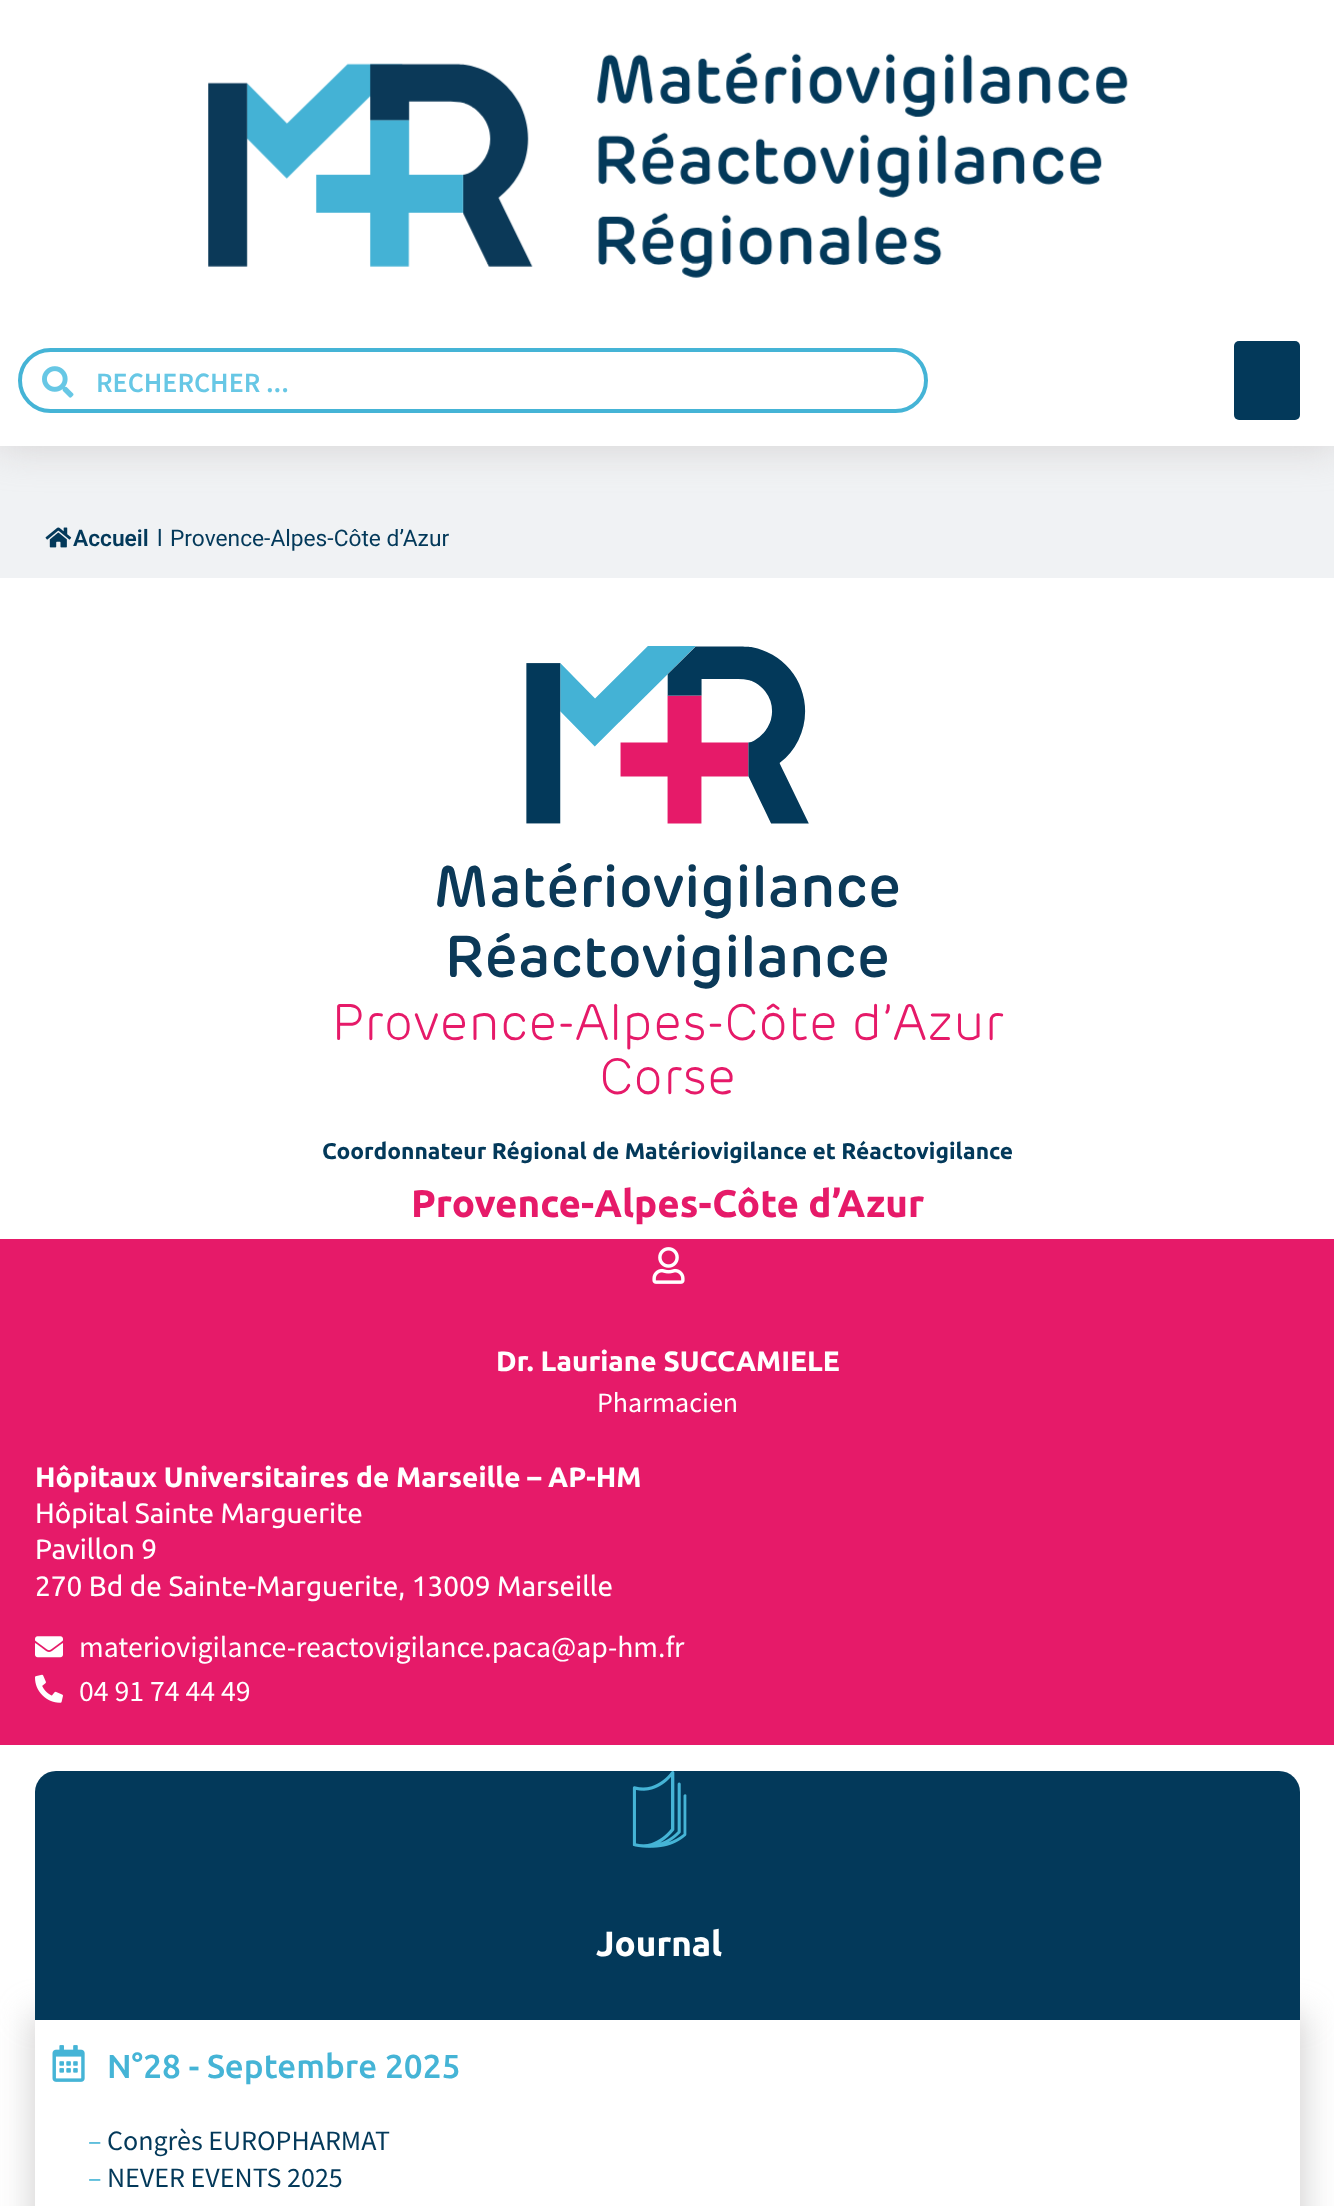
async function draw(canvas) {
  canvas.width = 1334;
  canvas.height = 2206;
  const ctx = canvas.getContext('2d');
  ctx.miterLimit = 4;
  ctx.fontKerning = 'normal';
  function label(s, x, y, font, color) {
    ctx.font = font;
    ctx.fillStyle = color;
    ctx.fillText(s, x, y);
  }
  function rect(x, y, w, h, color) {
    ctx.fillStyle = color;
    ctx.fillRect(x, y, w, h);
  }
  function roundedRect(x, y, w, h, r, color) {
    ctx.fillStyle = color;
    ctx.beginPath();
    ctx.roundRect(x, y, w, h, r);
    ctx.fill();
  }
  async function image(src, x, y, w, h) {
    const img = new Image();
    img.src = src;
    await img.decode();
    ctx.drawImage(img, x, y, w, h);
  }
  let path;

  rect(0, 0, 1334, 2206, '#f0f2f4');
  ctx.fillStyle = '#b9b1b180';
  ctx.filter = 'blur(20px)';
  ctx.beginPath();
  ctx.rect(-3, -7, 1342, 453);
  ctx.fill();
  ctx.filter = 'none';
  rect(0, 0, 1334, 446, '#fff');
  await image('assets/img1.png', 208, 52, 920, 226);
  ctx.beginPath();
  ctx.roundRect(20, 350, 906, 61, 30.5);
  ctx.strokeStyle = '#45b4d6';
  ctx.lineWidth = 4;
  ctx.stroke();
  await image('assets/img2.png', 42, 366, 32, 32);
  label('RECHERCHER ...', 96, 392, '600 28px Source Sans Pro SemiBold', '#67c7e5');
  roundedRect(1234, 341, 66, 79, 5, '#03395a');
  await image('assets/img3.png', 45, 527, 27, 21);
  label('Accueil', 73, 546, '600 22.75px Roboto', '#03395a');
  label('l', 157, 546, '22.75px Roboto', '#03395a');
  label('Provence-Alpes-Côte d’Azur', 170, 546, '22.75px Roboto', '#03395a');
  rect(0, 578, 1334, 661, '#fff');
  await image('assets/img4.png', 337, 646, 667, 449);
  label('Coordonnateur Régional de Matériovigilance et Réactovigilance', 322, 1159, 'bold 22.75px Ubuntu', '#03395a');
  label('Provence-Alpes-Côte d’Azur', 411, 1217, 'bold 38.5px Ubuntu', '#e61a69');
  rect(0, 1239, 1334, 506, '#e61a69');
  await image('assets/img5.png', 652, 1247, 33, 37);
  label('Dr. Lauriane SUCCAMIELE', 496, 1371, 'bold 28px Ubuntu', '#fff');
  label('Pharmacien', 597, 1412, '28px Source Sans Pro', '#fff');
  label('Hôpitaux Universitaires de Marseille – AP-HM', 35, 1487, 'bold 28px Ubuntu', '#fff');
  label('Hôpital Sainte Marguerite', 35, 1523, '28px Ubuntu', '#fff');
  label('Pavillon 9', 35, 1559, '28px Ubuntu', '#fff');
  label('270 Bd de Sainte-Marguerite, 13009 Marseille', 35, 1596, '28px Ubuntu', '#fff');
  await image('assets/img6.png', 35, 1636, 28, 22);
  label('materiovigilance-reactovigilance.paca@ap-hm.fr', 79, 1657, '29.75px Source Sans Pro', '#fff');
  await image('assets/img7.png', 35, 1674, 28, 29);
  label('04 91 74 44 49', 79, 1701, '29.75px Source Sans Pro', '#fff');
  rect(0, 1745, 1334, 461, '#fff');
  ctx.save();
  path = new Path2D('M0 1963H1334V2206H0ZM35 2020H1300V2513H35Z');
  ctx.clip(path, 'evenodd');
  ctx.fillStyle = '#aeabab80';
  ctx.filter = 'blur(16.5px)';
  ctx.beginPath();
  ctx.rect(30, 2014, 1276, 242);
  ctx.fill();
  ctx.filter = 'none';
  ctx.restore();
  ctx.fillStyle = '#03395a';
  ctx.beginPath();
  ctx.roundRect(35, 1771, 1265, 249, [21, 21, 0, 0]);
  ctx.fill();
  await image('assets/img8.png', 632, 1771, 55, 77);
  label('Journal', 596, 1956, 'bold 35px Ubuntu', '#fff');
  await image('assets/img9.png', 52, 2045, 33, 37);
  label('N°28 - Septembre 2025', 107, 2078, '500 33.25px Ubuntu', '#45b4d6');
  label('–', 88, 2150, '28px Source Sans Pro', '#45b4d6');
  label('Congrès EUROPHARMAT', 107, 2150, '28px Source Sans Pro', '#03395a');
  label('–', 88, 2187, '28px Source Sans Pro', '#45b4d6');
  label('NEVER EVENTS 2025', 107, 2187, '28px Source Sans Pro', '#03395a');
}

draw(document.querySelector('canvas'));
